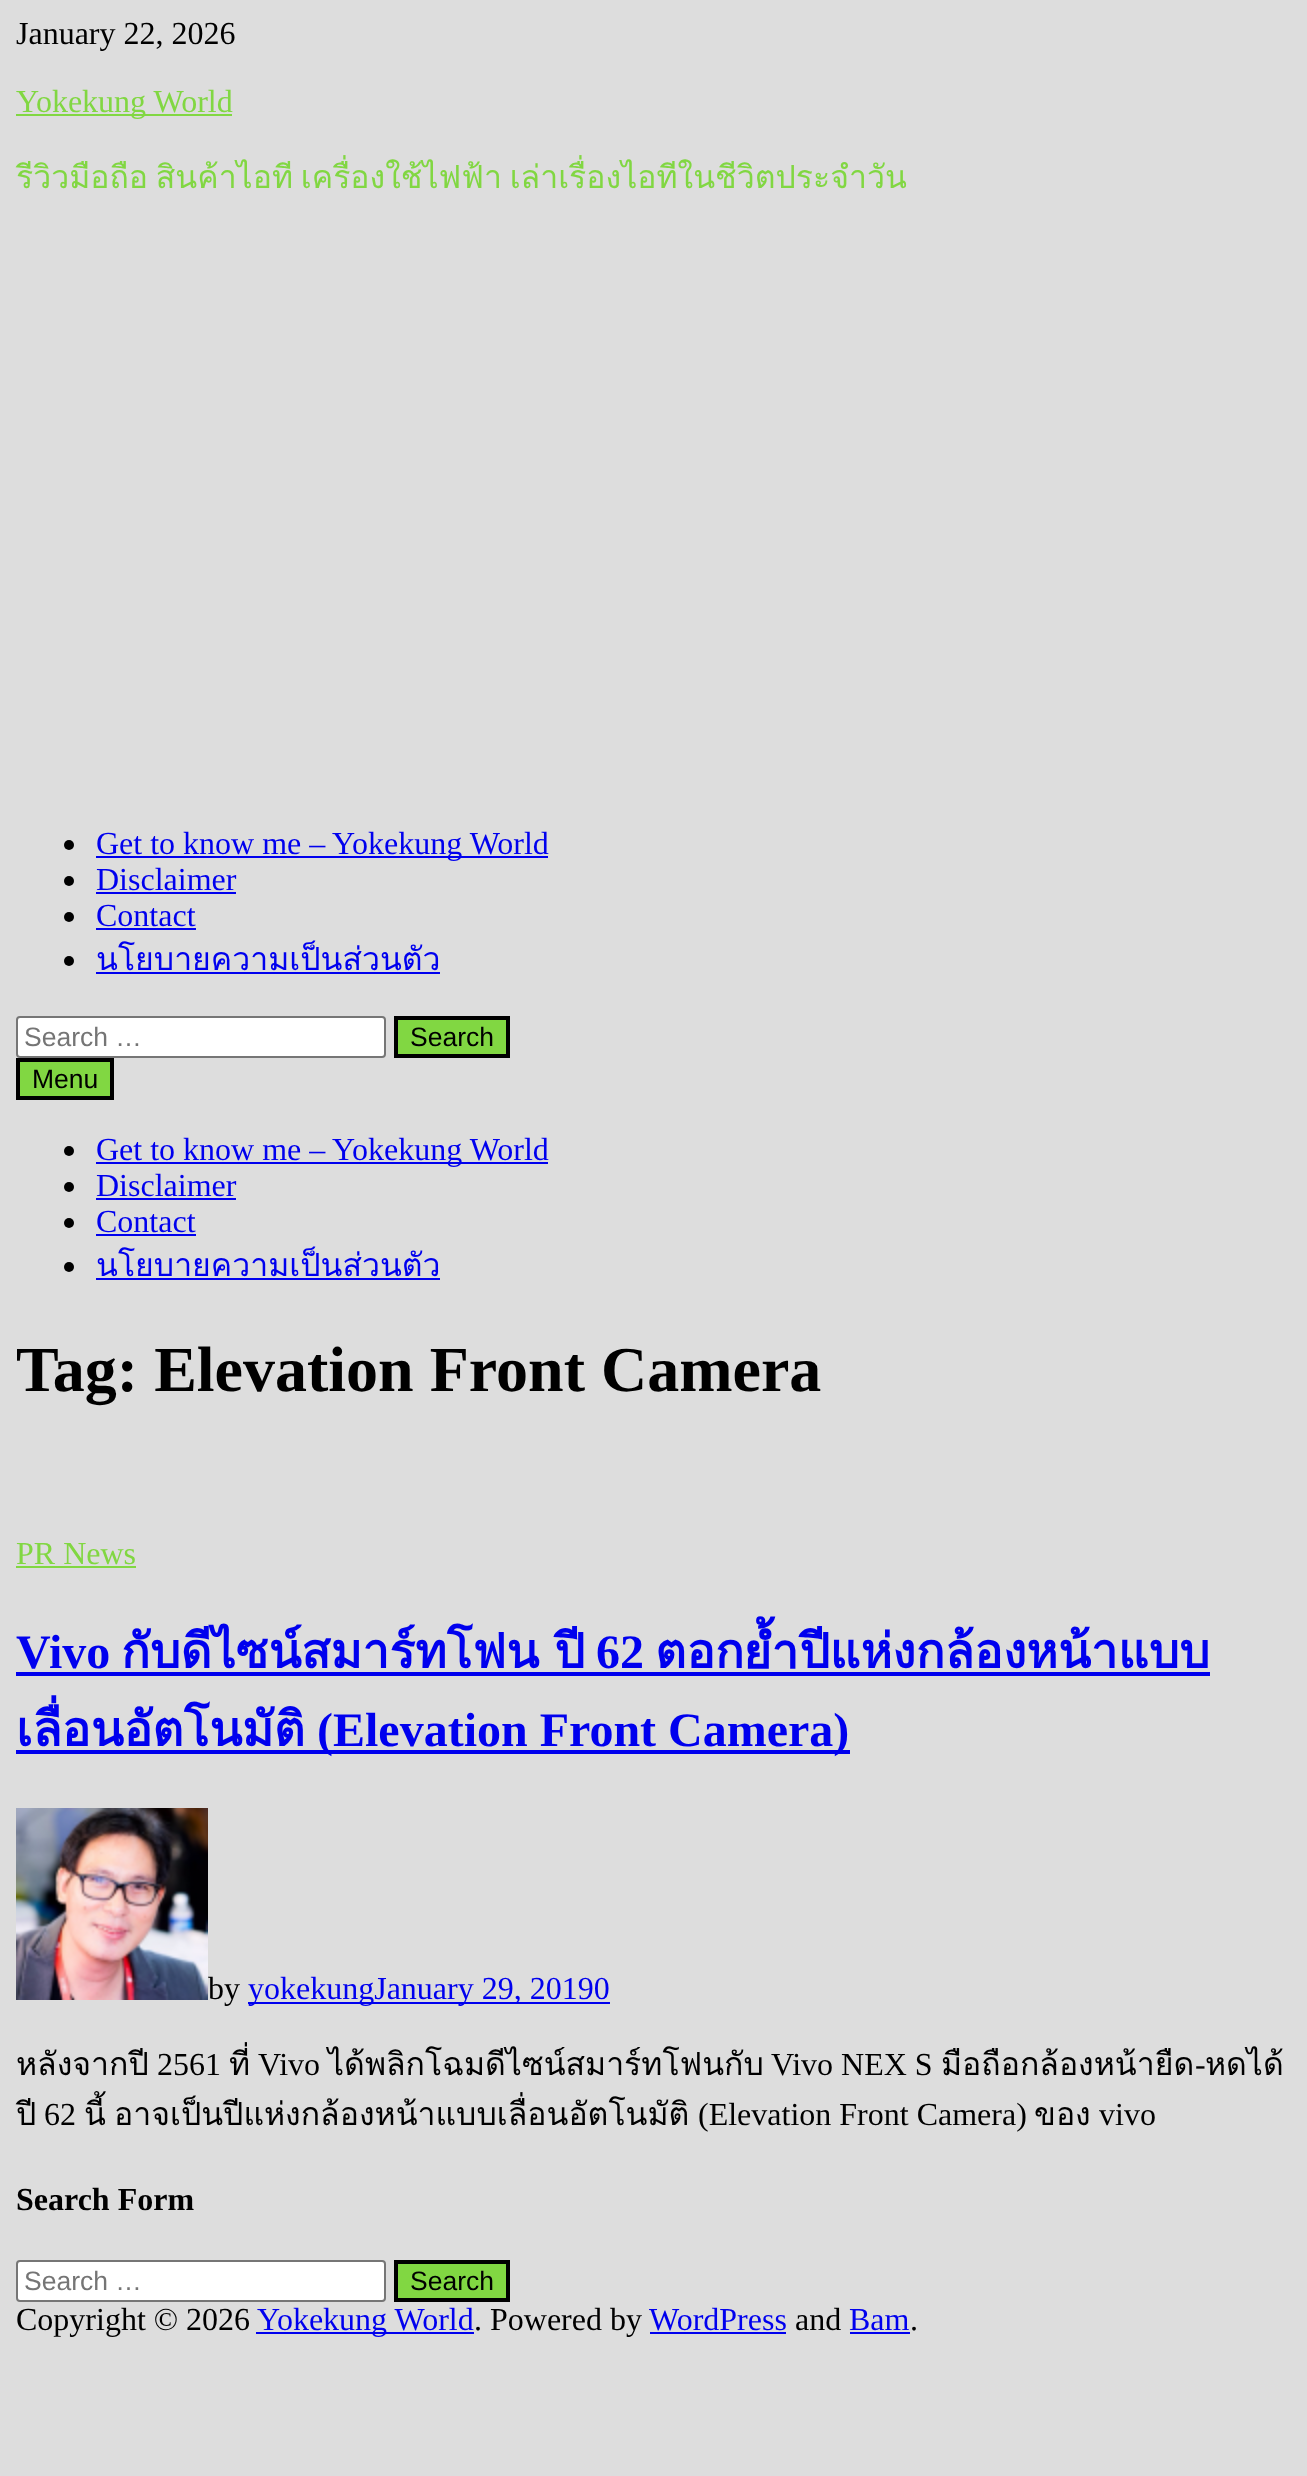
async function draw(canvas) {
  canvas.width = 1307;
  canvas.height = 2476;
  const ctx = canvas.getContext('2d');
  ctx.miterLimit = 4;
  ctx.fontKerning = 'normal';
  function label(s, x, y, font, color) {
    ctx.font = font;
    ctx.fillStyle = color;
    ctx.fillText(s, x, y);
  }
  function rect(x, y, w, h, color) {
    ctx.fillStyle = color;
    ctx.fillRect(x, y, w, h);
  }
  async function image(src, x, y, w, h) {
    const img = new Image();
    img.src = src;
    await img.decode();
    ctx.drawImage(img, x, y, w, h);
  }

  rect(0, 0, 1307, 2476, '#ddd');
  label('January 22, 2026', 16, 44, '32px Liberation Serif', '#000');
  rect(16, 114, 216, 2, '#81d742');
  label('Yokekung World', 16, 112, '32px Liberation Serif', '#81d742');
  ctx.wordSpacing = '-3px';
  label('รีวิวมือถือ สินค้าไอที เครื่องใช้ไฟฟ้า เล่าเรื่องไอทีในชีวิตประจำวัน', 16, 188, '32px Loma', '#81d742');
  ctx.fillStyle = '#000';
  ctx.beginPath();
  ctx.arc(69, 845, 5, 0, 2 * Math.PI);
  ctx.fill();
  rect(96, 856, 452, 2, '#00e');
  ctx.wordSpacing = '0px';
  label('Get to know me – Yokekung World', 96, 854, '32px Liberation Serif', '#00e');
  ctx.fillStyle = '#000';
  ctx.beginPath();
  ctx.arc(69, 881, 5, 0, 2 * Math.PI);
  ctx.fill();
  label('Disclaimer', 96, 890, '32px Liberation Serif', '#00e');
  rect(96, 892, 140, 2, '#00e');
  ctx.fillStyle = '#000';
  ctx.beginPath();
  ctx.arc(69, 917, 5, 0, 2 * Math.PI);
  ctx.fill();
  label('Contact', 96, 926, '32px Liberation Serif', '#00e');
  rect(96, 928, 100, 2, '#00e');
  ctx.fillStyle = '#000';
  ctx.beginPath();
  ctx.arc(69, 961, 5, 0, 2 * Math.PI);
  ctx.fill();
  label('นโยบายความเป็นส่วนตัว', 96, 970, '32px Loma', '#00e');
  rect(96, 972, 344, 2, '#00e');
  ctx.fillStyle = '#fff';
  ctx.beginPath();
  ctx.roundRect(17, 1017, 368, 40, 3);
  ctx.fill();
  ctx.strokeStyle = '#767676';
  ctx.lineWidth = 2;
  ctx.stroke();
  label('Search …', 24, 1046, '26.5px Liberation Sans', '#757575');
  ctx.fillStyle = '#81d742';
  ctx.beginPath();
  ctx.rect(396, 1018, 112, 38);
  ctx.fill();
  ctx.strokeStyle = '#000';
  ctx.lineWidth = 4;
  ctx.stroke();
  label('Search', 410, 1046, '26.5px Liberation Sans', '#000');
  ctx.fillStyle = '#81d742';
  ctx.beginPath();
  ctx.rect(18, 1060, 94, 38);
  ctx.fill();
  ctx.stroke();
  label('Menu', 32, 1088, '26.5px Liberation Sans', '#000');
  ctx.beginPath();
  ctx.arc(69, 1151, 5, 0, 2 * Math.PI);
  ctx.fill();
  rect(96, 1162, 452, 2, '#00e');
  label('Get to know me – Yokekung World', 96, 1160, '32px Liberation Serif', '#00e');
  ctx.fillStyle = '#000';
  ctx.beginPath();
  ctx.arc(69, 1187, 5, 0, 2 * Math.PI);
  ctx.fill();
  label('Disclaimer', 96, 1196, '32px Liberation Serif', '#00e');
  rect(96, 1198, 140, 2, '#00e');
  ctx.fillStyle = '#000';
  ctx.beginPath();
  ctx.arc(69, 1223, 5, 0, 2 * Math.PI);
  ctx.fill();
  label('Contact', 96, 1232, '32px Liberation Serif', '#00e');
  rect(96, 1234, 100, 2, '#00e');
  ctx.fillStyle = '#000';
  ctx.beginPath();
  ctx.arc(69, 1267, 5, 0, 2 * Math.PI);
  ctx.fill();
  label('นโยบายความเป็นส่วนตัว', 96, 1276, '32px Loma', '#00e');
  rect(96, 1278, 344, 2, '#00e');
  label('Tag: Elevation Front Camera', 16, 1391, 'bold 64px Liberation Serif', '#000');
  label('PR News', 16, 1564, '32px Liberation Serif', '#81d742');
  rect(16, 1566, 120, 2, '#81d742');
  label('Vivo', 16, 1668, 'bold 48px Liberation Serif', '#00e');
  ctx.wordSpacing = '-1px';
  label('กับดีไซน์สมาร์ทโฟน ปี', 121, 1668, 'bold 48px Loma', '#00e');
  ctx.wordSpacing = '0px';
  label('62', 596, 1668, 'bold 48px Liberation Serif', '#00e');
  rect(16, 1672, 1194, 4, '#00e');
  label('ตอกย้ำปีแห่งกล้องหน้าแบบ', 655, 1668, 'bold 48px Loma', '#00e');
  label('เลื่อนอัตโนมัติ', 16, 1746, 'bold 48px Loma', '#00e');
  rect(16, 1750, 834, 4, '#00e');
  label('(Elevation Front Camera)', 317, 1746, 'bold 48px Liberation Serif', '#00e');
  await image('assets/img1.png', 16, 1808, 192, 192);
  label('by', 208, 1999, '32px Liberation Serif', '#000');
  rect(248, 2002, 362, 2, '#00e');
  label('yokekungJanuary 29, 20190', 248, 1999, '32px Liberation Serif', '#00e');
  label('หลังจากปี', 16, 2075, '32px Loma', '#000');
  label('2561', 157, 2075, '32px Liberation Serif', '#000');
  label('ที่', 229, 2075, '32px Loma', '#000');
  label('Vivo', 258, 2075, '32px Liberation Serif', '#000');
  label('ได้พลิกโฉมดีไซน์สมาร์ทโฟนกับ', 328, 2075, '32px Loma', '#000');
  label('Vivo NEX S', 771, 2075, '32px Liberation Serif', '#000');
  label('มือถือกล้องหน้ายืด หดได้', 941, 2075, '32px Loma', '#000');
  label('-', 1195, 2075, '32px Liberation Serif', '#000');
  label('ปี', 16, 2125, '32px Loma', '#000');
  label('62', 44, 2125, '32px Liberation Serif', '#000');
  label('นี้', 84, 2125, '32px Loma', '#000');
  label('อาจเป็นปีแห่งกล้องหน้าแบบเลื่อนอัตโนมัติ', 114, 2125, '32px Loma', '#000');
  label('(Elevation Front Camera)', 698, 2125, '32px Liberation Serif', '#000');
  label('ของ', 1034, 2125, '32px Loma', '#000');
  label('vivo', 1099, 2125, '32px Liberation Serif', '#000');
  label('Search Form', 16, 2210, 'bold 32px Liberation Serif', '#000');
  ctx.fillStyle = '#fff';
  ctx.beginPath();
  ctx.roundRect(17, 2261, 368, 40, 3);
  ctx.fill();
  ctx.strokeStyle = '#767676';
  ctx.lineWidth = 2;
  ctx.stroke();
  label('Search …', 24, 2290, '26.5px Liberation Sans', '#757575');
  ctx.fillStyle = '#81d742';
  ctx.beginPath();
  ctx.rect(396, 2262, 112, 38);
  ctx.fill();
  ctx.strokeStyle = '#000';
  ctx.lineWidth = 4;
  ctx.stroke();
  label('Search', 410, 2290, '26.5px Liberation Sans', '#000');
  label('Copyright © 2026', 16, 2330, '32px Liberation Serif', '#000');
  rect(256, 2332, 218, 2, '#00e');
  label('Yokekung World', 257, 2330, '32px Liberation Serif', '#00e');
  label('. Powered by', 474, 2330, '32px Liberation Serif', '#000');
  label('WordPress', 649, 2330, '32px Liberation Serif', '#00e');
  rect(650, 2332, 136, 2, '#00e');
  label('and', 795, 2330, '32px Liberation Serif', '#000');
  label('Bam', 849, 2330, '32px Liberation Serif', '#00e');
  rect(850, 2332, 60, 2, '#00e');
  label('.', 910, 2330, '32px Liberation Serif', '#000');
}

draw(document.querySelector('canvas'));
